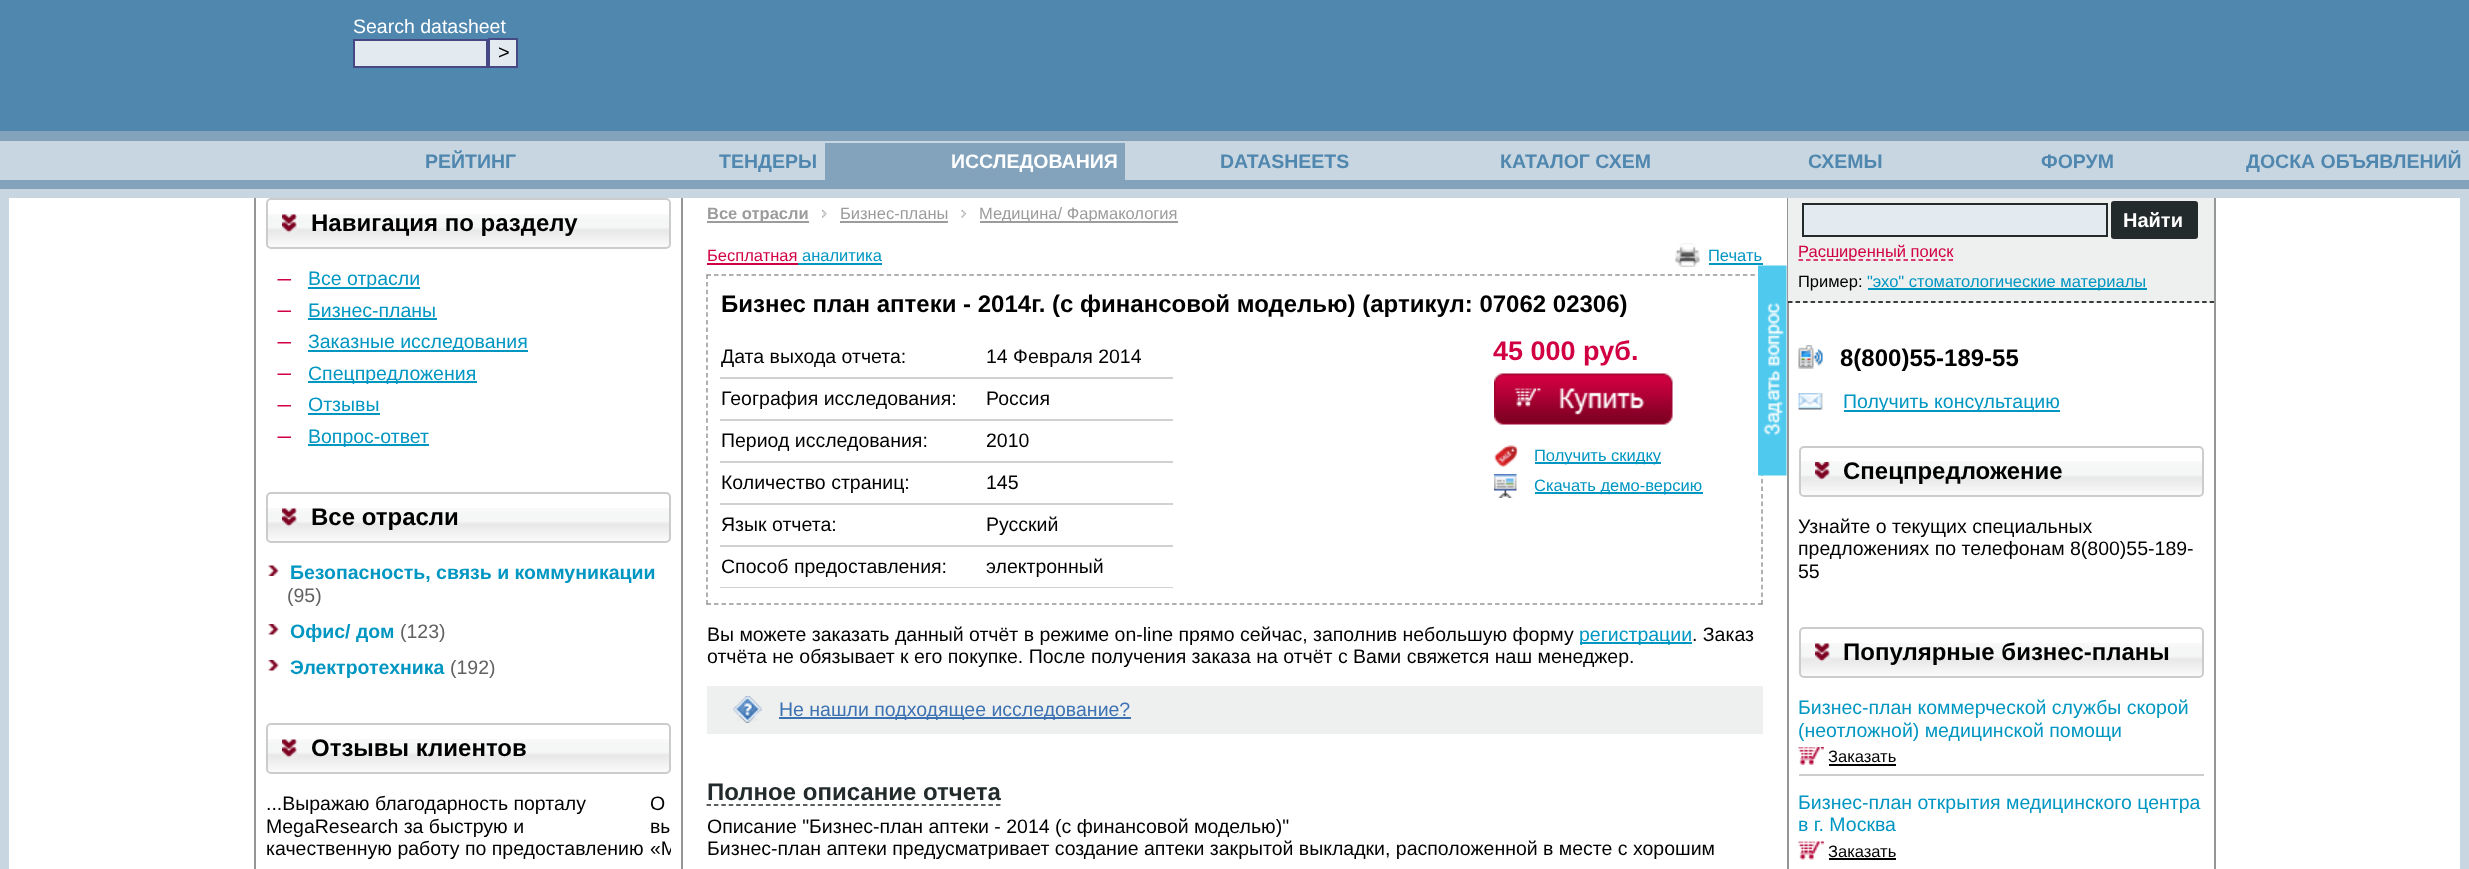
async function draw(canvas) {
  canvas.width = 2469;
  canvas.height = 869;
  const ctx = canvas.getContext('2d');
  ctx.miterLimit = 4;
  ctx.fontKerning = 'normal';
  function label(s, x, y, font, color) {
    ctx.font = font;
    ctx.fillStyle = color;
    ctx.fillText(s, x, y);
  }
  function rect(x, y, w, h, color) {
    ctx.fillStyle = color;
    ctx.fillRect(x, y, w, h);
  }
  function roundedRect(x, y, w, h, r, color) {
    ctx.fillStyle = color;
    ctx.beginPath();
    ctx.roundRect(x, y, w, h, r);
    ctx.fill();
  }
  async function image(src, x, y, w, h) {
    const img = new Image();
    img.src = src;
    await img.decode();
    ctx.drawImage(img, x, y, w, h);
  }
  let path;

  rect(0, 0, 2469, 869, '#c8d6e1');
  rect(0, 0, 2469, 131, '#5087af');
  label('Search datasheet', 353, 33, '19.5px Liberation Sans', '#fff');
  ctx.fillStyle = '#e3eaf0';
  ctx.beginPath();
  ctx.rect(354, 40, 133, 27);
  ctx.fill();
  ctx.strokeStyle = '#464983';
  ctx.lineWidth = 2;
  ctx.stroke();
  ctx.beginPath();
  ctx.rect(489, 39, 28, 28);
  ctx.fill();
  ctx.stroke();
  label('>', 498, 59, '20px Liberation Sans', '#000');
  rect(0, 131, 2469, 10, '#83a3bc');
  label('РЕЙТИНГ', 425, 168, 'bold 19.5px Liberation Sans', '#5087af');
  label('ТЕНДЕРЫ', 719, 168, 'bold 19.5px Liberation Sans', '#5087af');
  rect(825, 143, 300, 37, '#83a3bc');
  label('ИССЛЕДОВАНИЯ', 951, 168, 'bold 19.5px Liberation Sans', '#fff');
  label('DATASHEETS', 1220, 168, 'bold 19.5px Liberation Sans', '#5087af');
  label('КАТАЛОГ СХЕМ', 1500, 168, 'bold 19.5px Liberation Sans', '#5087af');
  label('СХЕМЫ', 1808, 168, 'bold 19.5px Liberation Sans', '#5087af');
  label('ФОРУМ', 2041, 168, 'bold 19.5px Liberation Sans', '#5087af');
  label('ДОСКА ОБЪЯВЛЕНИЙ', 2246, 168, 'bold 19.5px Liberation Sans', '#5087af');
  rect(0, 180, 2469, 9, '#83a3bc');
  rect(9, 198, 2451, 671, '#fff');
  rect(681, 198, 2, 671, '#969696');
  rect(254, 198, 2, 671, '#969696');
  await image('assets/img1.png', 265, 214, 406, 33);
  ctx.beginPath();
  ctx.roundRect(267, 199, 403, 49, 4);
  ctx.strokeStyle = '#ccc';
  ctx.stroke();
  await image('assets/img2.png', 282, 214, 15, 19);
  label('Навигация по разделу', 311, 231, 'bold 24px Liberation Sans', '#000');
  await image('assets/img3.png', 277, 279, 14, 2);
  rect(308, 287, 112, 2, '#0096c2');
  label('Все отрасли', 308, 285, '19.5px Liberation Sans', '#0096c2');
  await image('assets/img4.png', 277, 310, 14, 2);
  label('Бизнес-планы', 308, 317, '19.5px Liberation Sans', '#0096c2');
  rect(308, 318, 129, 2, '#0096c2');
  await image('assets/img3.png', 277, 342, 14, 2);
  rect(308, 350, 220, 2, '#0096c2');
  label('Заказные исследования', 308, 348, '19.5px Liberation Sans', '#0096c2');
  await image('assets/img4.png', 277, 373, 14, 2);
  rect(308, 381, 169, 2, '#0096c2');
  label('Спецпредложения', 308, 380, '19.5px Liberation Sans', '#0096c2');
  await image('assets/img3.png', 277, 405, 14, 2);
  label('Отзывы', 308, 411, '19.5px Liberation Sans', '#0096c2');
  rect(308, 413, 72, 2, '#0096c2');
  await image('assets/img4.png', 277, 436, 14, 2);
  rect(308, 444, 121, 2, '#0096c2');
  label('Вопрос-ответ', 308, 443, '19.5px Liberation Sans', '#0096c2');
  await image('assets/img1.png', 265, 508, 406, 33);
  ctx.beginPath();
  ctx.roundRect(267, 493, 403, 49, 4);
  ctx.stroke();
  await image('assets/img2.png', 282, 508, 15, 19);
  label('Все отрасли', 311, 525, 'bold 24px Liberation Sans', '#000');
  await image('assets/img5.png', 268, 565, 11, 11);
  label('Безопасность, связь и коммуникации', 290, 579, 'bold 19.5px Liberation Sans', '#0096c2');
  label('(95)', 287, 602, '19.5px Liberation Sans', '#626262');
  await image('assets/img6.png', 268, 624, 11, 11);
  label('Офис/ дом', 290, 638, 'bold 19.5px Liberation Sans', '#0096c2');
  label('(123)', 400, 638, '19.5px Liberation Sans', '#626262');
  await image('assets/img6.png', 268, 660, 11, 11);
  label('Электротехника', 290, 674, 'bold 19.5px Liberation Sans', '#0096c2');
  label('(192)', 450, 674, '19.5px Liberation Sans', '#626262');
  await image('assets/img1.png', 265, 739, 406, 33);
  ctx.beginPath();
  ctx.roundRect(267, 724, 403, 49, 4);
  ctx.stroke();
  await image('assets/img2.png', 282, 739, 15, 19);
  label('Отзывы клиентов', 311, 756, 'bold 24px Liberation Sans', '#000');
  label('...Выражаю благодарность порталу', 266, 810, '19.5px Liberation Sans', '#000');
  label('MegaResearch за быструю и', 266, 833, '19.5px Liberation Sans', '#000');
  label('качественную работу по предоставлению', 266, 855, '19.5px Liberation Sans', '#000');
  label('О', 650, 810, '19.5px Liberation Sans', '#000');
  ctx.save();
  ctx.beginPath();
  ctx.rect(266, 792, 405, 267);
  ctx.clip();
  label('вы', 650, 833, '19.5px Liberation Sans', '#000');
  label('«M', 650, 855, '19.5px Liberation Sans', '#000');
  ctx.restore();
  rect(707, 221, 102, 2, '#9c9c9c');
  label('Все отрасли', 707, 219, 'bold 16.5px Liberation Sans', '#9c9c9c');
  await image('assets/img7.png', 822, 210, 5, 8);
  label('Бизнес-планы', 840, 219, '16.5px Liberation Sans', '#9c9c9c');
  rect(840, 221, 108, 2, '#9c9c9c');
  await image('assets/img8.png', 961, 210, 5, 8);
  rect(980, 221, 198, 2, '#9c9c9c');
  label('Медицина/ Фармакология', 979, 219, '16.5px Liberation Sans', '#9c9c9c');
  label('Бесплатная', 707, 261, '16.5px Liberation Sans', '#d10042');
  rect(707, 263, 91, 2, '#d10042');
  label('аналитика', 802, 261, '16.5px Liberation Sans', '#0096c2');
  rect(798, 263, 84, 2, '#0096c2');
  await image('assets/img9.png', 1675, 243, 25, 24);
  label('Печать', 1708, 261, '16.5px Liberation Sans', '#0096c2');
  rect(1709, 263, 54, 2, '#0096c2');
  path = new Path2D('M706.5 275H1762.5');
  ctx.strokeStyle = '#969696';
  ctx.lineWidth = 1.5;
  ctx.setLineDash([4.5, 3.01]);
  ctx.stroke(path);
  path = new Path2D('M1762 274.5V604.5');
  ctx.setLineDash([4.5, 3.07]);
  ctx.stroke(path);
  path = new Path2D('M706.5 604H1762.5');
  ctx.setLineDash([4.5, 3.01]);
  ctx.stroke(path);
  path = new Path2D('M707 274.5V604.5');
  ctx.setLineDash([4.5, 3.07]);
  ctx.stroke(path);
  label('Бизнес план аптеки - 2014г. (с финансовой моделью) (артикул: 07062 02306)', 721, 312, 'bold 24px Liberation Sans', '#000');
  label('Дата выхода отчета:', 721, 363, '19.5px Liberation Sans', '#000');
  rect(720, 377, 453, 2, '#d0d0d0');
  label('14 Февраля 2014', 986, 363, '19.5px Liberation Sans', '#000');
  label('География исследования:', 721, 405, '19.5px Liberation Sans', '#000');
  rect(720, 419, 453, 2, '#d0d0d0');
  label('Россия', 986, 405, '19.5px Liberation Sans', '#000');
  label('Период исследования:', 721, 447, '19.5px Liberation Sans', '#000');
  rect(720, 461, 453, 2, '#d0d0d0');
  label('2010', 986, 447, '19.5px Liberation Sans', '#000');
  label('Количество страниц:', 721, 489, '19.5px Liberation Sans', '#000');
  rect(720, 503, 453, 2, '#d0d0d0');
  label('145', 986, 489, '19.5px Liberation Sans', '#000');
  label('Язык отчета:', 721, 531, '19.5px Liberation Sans', '#000');
  rect(720, 545, 453, 2, '#d0d0d0');
  label('Русский', 986, 531, '19.5px Liberation Sans', '#000');
  label('Способ предоставления:', 721, 573, '19.5px Liberation Sans', '#000');
  rect(720, 587, 453, 1, '#d0d0d0');
  label('электронный', 986, 573, '19.5px Liberation Sans', '#000');
  label('45 000 руб.', 1493, 360, 'bold 27px Liberation Sans', '#d10042');
  await image('assets/img10.png', 1494, 373, 179, 52);
  await image('assets/img11.png', 1494, 445, 24, 22);
  rect(1535, 462, 126, 2, '#0096c2');
  label('Получить скидку', 1534, 461, '16.5px Liberation Sans', '#0096c2');
  await image('assets/img12.png', 1494, 474, 23, 24);
  rect(1535, 492, 168, 2, '#0096c2');
  label('Скачать демо-версию', 1534, 491, '16.5px Liberation Sans', '#0096c2');
  label('Вы можете заказать данный отчёт в режиме on-line прямо сейчас, заполнив небольшую форму', 707, 641, '19.5px Liberation Sans', '#000');
  rect(1580, 642, 112, 2, '#0096c2');
  label('регистрации', 1579, 641, '19.5px Liberation Sans', '#0096c2');
  label('. Заказ', 1692, 641, '19.5px Liberation Sans', '#000');
  label('отчёта не обязывает к его покупке. После получения заказа на отчёт с Вами свяжется наш менеджер.', 707, 663, '19.5px Liberation Sans', '#000');
  rect(707, 686, 1056, 48, '#eeefef');
  await image('assets/img13.png', 733, 696, 29, 27);
  rect(779, 717, 352, 2, '#3c72b2');
  label('Не нашли подходящее исследование?', 779, 716, '19.5px Liberation Sans', '#3c72b2');
  label('Полное описание отчета', 707, 800, 'bold 24px Liberation Sans', '#232a2b');
  path = new Path2D('M706.5 805H1000.5');
  ctx.strokeStyle = '#232a2b';
  ctx.setLineDash([4.5, 2.92]);
  ctx.stroke(path);
  label('Описание "Бизнес-план аптеки - 2014 (с финансовой моделью)"', 707, 833, '19.5px Liberation Sans', '#000');
  label('Бизнес-план аптеки предусматривает создание аптеки закрытой выкладки, расположенной в месте с хорошим', 707, 855, '19.5px Liberation Sans', '#000');
  await image('assets/img14.png', 1758, 265, 29, 211);
  rect(2214, 198, 2, 671, '#969696');
  rect(1787, 198, 2, 671, '#969696');
  rect(1788, 198, 426, 105, '#eeefef');
  path = new Path2D('M1788 302H2214');
  ctx.strokeStyle = '#000';
  ctx.setLineDash([4.5, 3.03]);
  ctx.stroke(path);
  ctx.fillStyle = '#e3eaf0';
  ctx.beginPath();
  ctx.rect(1803, 204, 304, 32);
  ctx.fill();
  ctx.strokeStyle = '#232a2b';
  ctx.lineWidth = 2;
  ctx.setLineDash([]);
  ctx.stroke();
  roundedRect(2111, 201, 87, 38, 3, '#232a2b');
  label('Найти', 2123, 227, 'bold 20px Liberation Sans', '#fff');
  path = new Path2D('M1798.5 260H1953');
  ctx.strokeStyle = '#d10042';
  ctx.lineWidth = 1.5;
  ctx.setLineDash([4.5, 3]);
  ctx.stroke(path);
  label('Расширенный поиск', 1798, 257, '16.5px Liberation Sans', '#d10042');
  label('Пример:', 1798, 287, '16.5px Liberation Sans', '#000');
  rect(1868, 288, 279, 2, '#0096c2');
  label('"эхо" стоматологические материалы', 1867, 287, '16.5px Liberation Sans', '#0096c2');
  await image('assets/img15.png', 1798, 345, 25, 24);
  label('8(800)55-189-55', 1840, 366, 'bold 24px Liberation Sans', '#000');
  await image('assets/img16.png', 1798, 393, 25, 17);
  rect(1844, 410, 216, 2, '#0096c2');
  label('Получить консультацию', 1843, 408, '19.5px Liberation Sans', '#0096c2');
  await image('assets/img17.png', 1798, 461, 406, 34);
  ctx.beginPath();
  ctx.roundRect(1800, 447, 403, 49, 4);
  ctx.strokeStyle = '#ccc';
  ctx.lineWidth = 2;
  ctx.setLineDash([]);
  ctx.stroke();
  await image('assets/img18.png', 1815, 462, 15, 18);
  label('Спецпредложение', 1843, 479, 'bold 24px Liberation Sans', '#000');
  label('Узнайте о текущих специальных', 1798, 533, '19.5px Liberation Sans', '#000');
  label('предложениях по телефонам 8(800)55-189-', 1798, 555, '19.5px Liberation Sans', '#000');
  label('55', 1798, 578, '19.5px Liberation Sans', '#000');
  await image('assets/img1.png', 1798, 643, 406, 33);
  ctx.beginPath();
  ctx.roundRect(1800, 628, 403, 49, 4);
  ctx.stroke();
  await image('assets/img2.png', 1815, 643, 15, 19);
  label('Популярные бизнес-планы', 1843, 660, 'bold 24px Liberation Sans', '#000');
  rect(1799, 774, 405, 2, '#cdcdcd');
  label('Бизнес-план коммерческой службы скорой', 1798, 714, '19.5px Liberation Sans', '#0096c2');
  label('(неотложной) медицинской помощи', 1798, 737, '19.5px Liberation Sans', '#0096c2');
  await image('assets/img19.png', 1798, 747, 26, 18);
  label('Заказать', 1828, 762, '16.5px Liberation Sans', '#000');
  rect(1829, 764, 67, 2, '#000');
  label('Бизнес-план открытия медицинского центра', 1798, 809, '19.5px Liberation Sans', '#0096c2');
  label('в г. Москва', 1798, 831, '19.5px Liberation Sans', '#0096c2');
  await image('assets/img20.png', 1798, 841, 26, 19);
  label('Заказать', 1828, 857, '16.5px Liberation Sans', '#000');
  rect(1829, 858, 67, 2, '#000');
}

draw(document.querySelector('canvas'));
